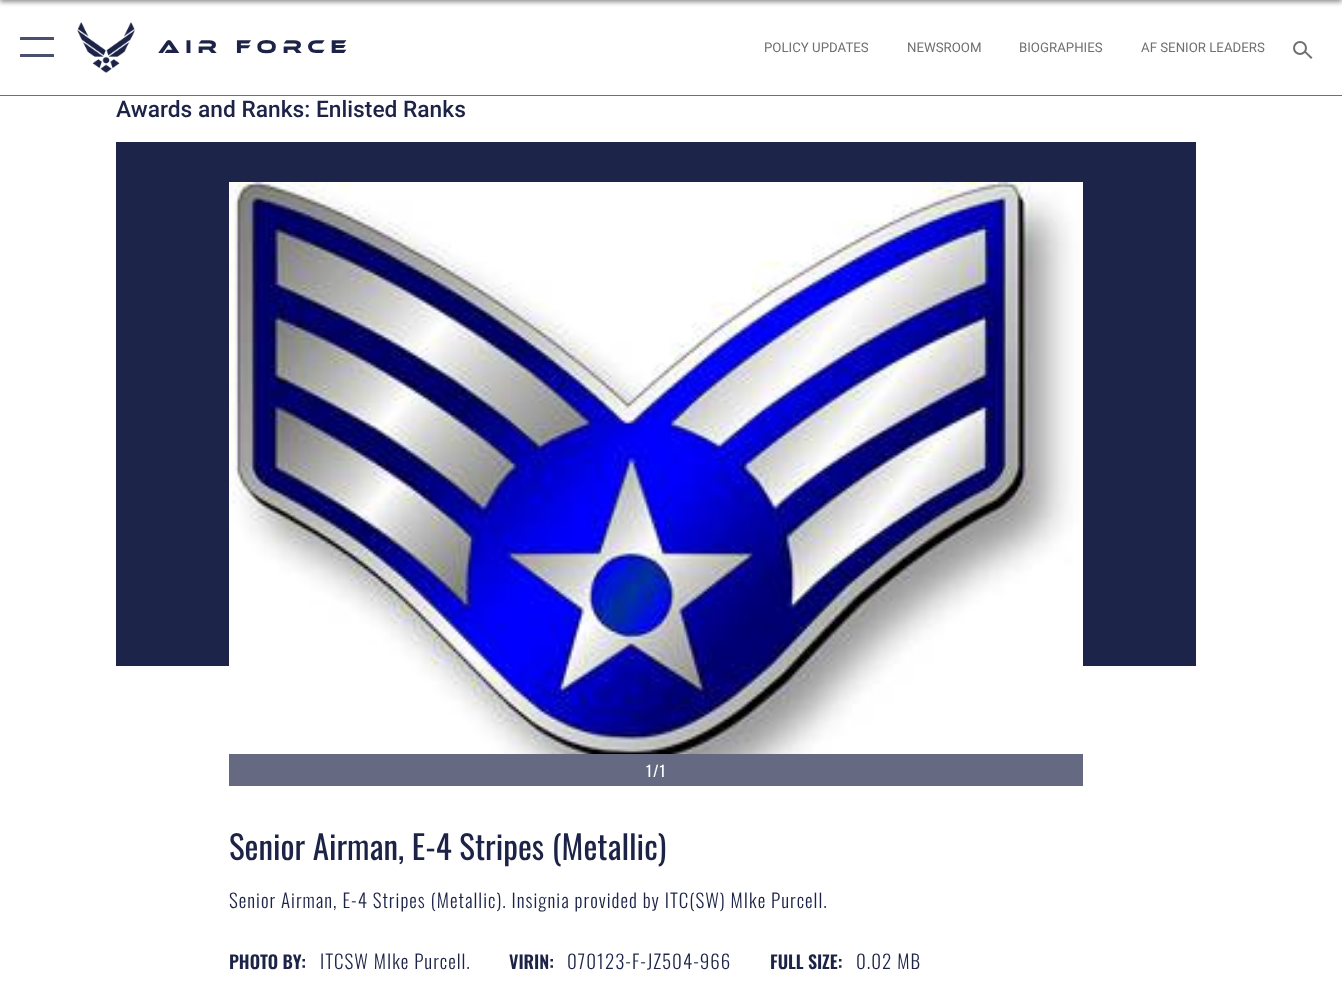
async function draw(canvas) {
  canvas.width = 1342;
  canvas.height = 1006;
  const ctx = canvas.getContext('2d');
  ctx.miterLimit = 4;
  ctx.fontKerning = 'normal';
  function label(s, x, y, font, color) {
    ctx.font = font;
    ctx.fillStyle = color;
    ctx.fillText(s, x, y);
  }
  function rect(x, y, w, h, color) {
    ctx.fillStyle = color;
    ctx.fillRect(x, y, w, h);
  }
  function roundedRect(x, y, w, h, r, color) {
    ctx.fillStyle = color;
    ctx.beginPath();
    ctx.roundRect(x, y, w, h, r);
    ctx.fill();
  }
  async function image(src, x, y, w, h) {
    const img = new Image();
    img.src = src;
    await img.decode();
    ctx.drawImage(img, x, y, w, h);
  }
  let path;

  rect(0, 0, 1342, 1006, '#fff');
  ctx.fillStyle = '#1a1a1a80';
  ctx.filter = 'blur(2.5px)';
  ctx.beginPath();
  ctx.rect(0, -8, 1342, 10);
  ctx.fill();
  ctx.filter = 'none';
  rect(0, 95, 1342, 1, '#707070');
  roundedRect(20, 37, 34, 3, 0.5, '#49506d');
  roundedRect(20, 54, 34, 3, 0.5, '#49506d');
  await image('assets/img1.png', 77, 22, 58, 51);
  ctx.letterSpacing = '5.75px';
  label('Air Force', 158, 53, '19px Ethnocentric', '#1c2347');
  ctx.letterSpacing = '0px';
  label('POLICY UPDATES', 764, 52, '13.25px Roboto', '#707070');
  label('NEWSROOM', 907, 52, '13.25px Roboto', '#707070');
  label('BIOGRAPHIES', 1019, 52, '13.25px Roboto', '#707070');
  label('AF SENIOR LEADERS', 1141, 52, '13.25px Roboto', '#707070');
  ctx.beginPath();
  ctx.arc(1300, 48, 6, 0, 2 * Math.PI);
  ctx.strokeStyle = '#707070';
  ctx.lineWidth = 2;
  ctx.stroke();
  path = new Path2D('M1305 50.5L1312.5 57.5L1311 59L1304 52Z');
  ctx.fill(path);
  label('Awards and Ranks: Enlisted Ranks', 116, 117, '500 22.75px Roboto', '#1c2347');
  rect(116, 142, 1080, 524, '#1c2449');
  rect(229, 182, 1, 484, '#fff');
  await image('assets/img2.png', 230, 182, 853, 572);
  rect(229, 754, 854, 32, '#656a82');
  ctx.letterSpacing = '1px';
  label('1/1', 646, 777, '15px Oswald', '#fff');
  ctx.letterSpacing = '0px';
  label('Senior Airman, E-4 Stripes (Metallic)', 229, 860, '33px Oswald', '#1c2347');
  ctx.letterSpacing = '1px';
  label('Senior Airman, E-4 Stripes (Metallic). Insignia provided by ITC(SW) MIke Purcell.', 229, 908, '300 19px Oswald', '#1c2347');
  ctx.letterSpacing = '0px';
  label('PHOTO BY:', 229, 969, '600 18px Oswald', '#1c2347');
  ctx.letterSpacing = '1px';
  label('ITCSW MIke Purcell.', 320, 969, '300 19px Oswald', '#1c2347');
  ctx.letterSpacing = '0px';
  label('VIRIN:', 509, 969, '600 18px Oswald', '#1c2347');
  ctx.letterSpacing = '1px';
  label('070123-F-JZ504-966', 567, 969, '300 19px Oswald', '#1c2347');
  ctx.letterSpacing = '0px';
  label('FULL SIZE:', 770, 969, '600 18px Oswald', '#1c2347');
  ctx.letterSpacing = '1px';
  label('0.02 MB', 856, 969, '300 19px Oswald', '#1c2347');
}

draw(document.querySelector('canvas'));
